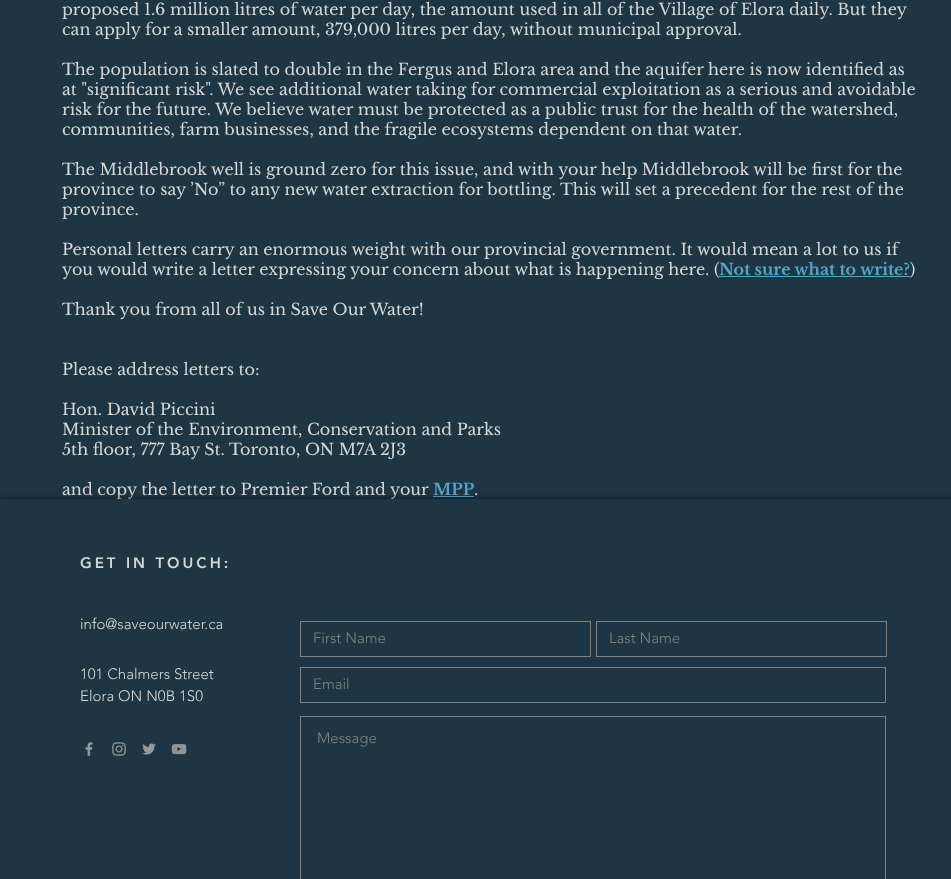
async function draw(canvas) {
  canvas.width = 951;
  canvas.height = 879;
  const ctx = canvas.getContext('2d');
  ctx.miterLimit = 4;
  ctx.fontKerning = 'normal';
  function label(s, x, y, font, color) {
    ctx.font = font;
    ctx.fillStyle = color;
    ctx.fillText(s, x, y);
  }
  function rect(x, y, w, h, color) {
    ctx.fillStyle = color;
    ctx.fillRect(x, y, w, h);
  }
  async function image(src, x, y, w, h) {
    const img = new Image();
    img.src = src;
    await img.decode();
    ctx.drawImage(img, x, y, w, h);
  }

  rect(0, 0, 951, 879, '#1e3643');
  label('proposed 1.6 million litres of water per day, the amount used in all of the Village of Elora daily. But they', 62, 15, '16px Libre Baskerville', '#d5d5d5');
  label('can apply for a smaller amount, 379,000 litres per day, without municipal approval.', 62, 35, '16px Libre Baskerville', '#d5d5d5');
  label('The population is slated to double in the Fergus and Elora area and the aquifer here is now identified as', 62, 75, '16px Libre Baskerville', '#d5d5d5');
  label('at "significant risk". We see additional water taking for commercial exploitation as a serious and avoidable', 62, 95, '16px Libre Baskerville', '#d5d5d5');
  label('risk for the future. We believe water must be protected as a public trust for the health of the watershed,', 62, 115, '16px Libre Baskerville', '#d5d5d5');
  label('communities, farm businesses, and the fragile ecosystems dependent on that water.', 62, 135, '16px Libre Baskerville', '#d5d5d5');
  label('The Middlebrook well is ground zero for this issue, and with your help Middlebrook will be first for the', 62, 175, '16px Libre Baskerville', '#d5d5d5');
  label('province to say ’No” to any new water extraction for bottling. This will set a precedent for the rest of the', 62, 195, '16px Libre Baskerville', '#d5d5d5');
  label('province.', 62, 215, '16px Libre Baskerville', '#d5d5d5');
  label('Personal letters carry an enormous weight with our provincial government. It would mean a lot to us if', 62, 255, '16px Libre Baskerville', '#d5d5d5');
  label('you would write a letter expressing your concern about what is happening here. (', 62, 275, '16px Libre Baskerville', '#d5d5d5');
  rect(719, 276, 191, 1, '#59a1c9');
  label('Not sure what to write?', 719, 275, 'bold 16px Libre Baskerville', '#59a1c9');
  label(')', 910, 275, '16px Libre Baskerville', '#d5d5d5');
  label('Thank you from all of us in Save Our Water!', 62, 315, '16px Libre Baskerville', '#d5d5d5');
  label('Please address letters to:', 62, 375, '16px Libre Baskerville', '#d5d5d5');
  label('Hon. David Piccini', 62, 415, '16px Libre Baskerville', '#d5d5d5');
  label('Minister of the Environment, Conservation and Parks', 62, 435, '16px Libre Baskerville', '#d5d5d5');
  label('5th floor, 777 Bay St. Toronto, ON M7A 2J3', 62, 455, '16px Libre Baskerville', '#d5d5d5');
  label('and copy the letter to Premier Ford and your', 62, 495, '16px Libre Baskerville', '#d5d5d5');
  label('MPP', 433, 495, 'bold 16px Libre Baskerville', '#59a1c9');
  label('.', 474, 495, '16px Libre Baskerville', '#d5d5d5');
  rect(433, 496, 41, 1, '#59a1c9');
  ctx.fillStyle = '#000000b3';
  ctx.filter = 'blur(2.5px)';
  ctx.beginPath();
  ctx.rect(0, 499, 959, 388);
  ctx.fill();
  ctx.filter = 'none';
  rect(0, 499, 951, 380, '#1e3643');
  ctx.letterSpacing = '3px';
  label('GET IN TOUCH:', 80, 568, '900 15px "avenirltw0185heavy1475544"', '#d5d5d5');
  ctx.letterSpacing = '0px';
  label('info@saveourwater.ca', 80, 629, '300 15px "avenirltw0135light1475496"', '#d5d5d5');
  label('101 Chalmers Street', 80, 679, '300 15px "avenirltw0135light1475496"', '#d5d5d5');
  label('Elora ON N0B 1S0', 80, 701, '300 15px "avenirltw0135light1475496"', '#d5d5d5');
  ctx.strokeStyle = '#808080';
  ctx.strokeRect(300.5, 621.5, 290, 35);
  label('First Name', 313, 643, '300 15px "avenirltw0135light1475496"', '#808080');
  ctx.strokeRect(596.5, 621.5, 290, 35);
  label('Last Name', 609, 643, '300 15px "avenirltw0135light1475496"', '#808080');
  ctx.strokeRect(300.5, 667.5, 585, 35);
  label('Email', 313, 689, '300 15px "avenirltw0135light1475496"', '#808080');
  ctx.strokeRect(300.5, 716.5, 585, 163);
  label('Message', 317, 743, '300 15px "avenirltw0135light1475496"', '#808080');
  await image('assets/img1.png', 85, 742, 8, 14);
  await image('assets/img2.png', 112, 742, 14, 14);
  await image('assets/img3.png', 142, 743, 14, 12);
  await image('assets/img4.png', 171, 743, 16, 12);
}

draw(document.querySelector('canvas'));
